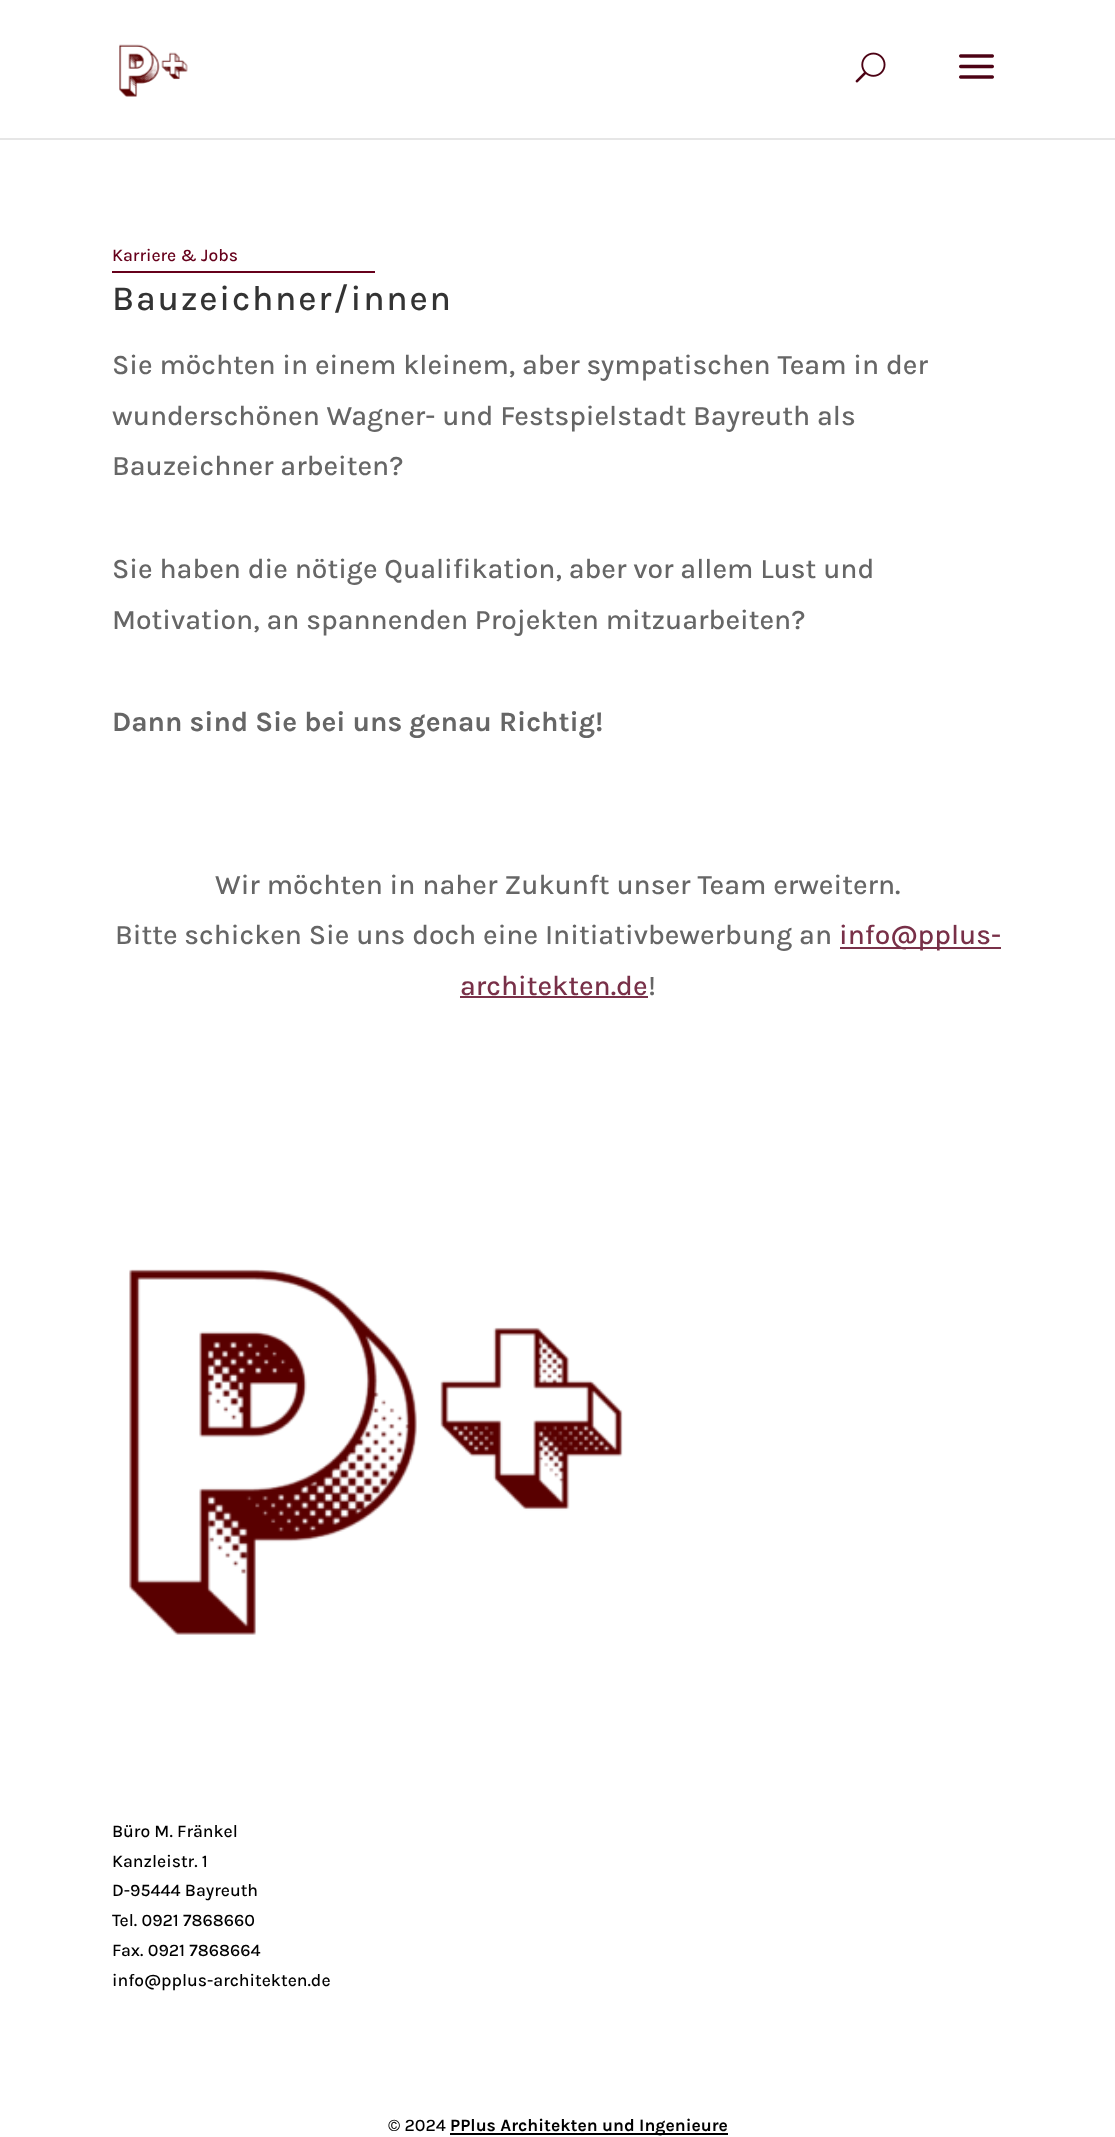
async function draw(canvas) {
  canvas.width = 1115;
  canvas.height = 2137;
  const ctx = canvas.getContext('2d');
  ctx.miterLimit = 4;
  ctx.fontKerning = 'normal';
  function label(s, x, y, font, color) {
    ctx.font = font;
    ctx.fillStyle = color;
    ctx.fillText(s, x, y);
  }
  function rect(x, y, w, h, color) {
    ctx.fillStyle = color;
    ctx.fillRect(x, y, w, h);
  }
  async function image(src, x, y, w, h) {
    const img = new Image();
    img.src = src;
    await img.decode();
    ctx.drawImage(img, x, y, w, h);
  }
  let path;

  rect(0, 0, 1115, 2137, '#fff');
  ctx.fillStyle = '#e6e6e6';
  path = new Path2D('M0 138V140H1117V0H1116V138Z');
  ctx.fill(path);
  await image('assets/img1.png', 119, 44, 69, 53);
  await image('assets/img2.png', 855, 52, 31, 31);
  await image('assets/img3.png', 959, 54, 35, 25);
  label('Karriere & Jobs', 112, 261, '500 17.5px Karla', '#66001b');
  rect(112, 271, 263, 2, '#66001b');
  ctx.letterSpacing = '1.75px';
  label('Bauzeichner/innen', 112, 310, '500 35px Karla', '#333');
  ctx.letterSpacing = '0px';
  label('Sie möchten in einem kleinem, aber sympatischen Team in der', 112, 374, '500 28px Karla', '#666');
  label('wunderschönen Wagner- und Festspielstadt Bayreuth als', 112, 425, '500 28px Karla', '#666');
  label('Bauzeichner arbeiten?', 112, 475, '500 28px Karla', '#666');
  label('Sie haben die nötige Qualifikation, aber vor allem Lust und', 112, 578, '500 28px Karla', '#666');
  label('Motivation, an spannenden Projekten mitzuarbeiten?', 112, 629, '500 28px Karla', '#666');
  label('Dann sind Sie bei uns genau Richtig!', 112, 731, 'bold 28px Karla', '#666');
  label('Wir möchten in naher Zukunft unser Team erweitern.', 215, 894, '500 28px Karla', '#666');
  label('Bitte schicken Sie uns doch eine Initiativbewerbung an', 115, 944, '500 28px Karla', '#666');
  rect(840, 947, 161, 2, '#793149');
  label('info@pplus-', 839, 944, '500 28px Karla', '#783048');
  label('architekten.de', 460, 995, '500 28px Karla', '#783048');
  rect(460, 996, 188, 2, '#793149');
  label('!', 648, 995, '500 28px Karla', '#666');
  await image('assets/img4.png', 129, 1269, 494, 366);
  label('Büro M. Fränkel', 112, 1837, '500 17.5px Karla', '#000');
  label('Kanzleistr. 1', 112, 1867, '500 17.5px Karla', '#000');
  label('D-95444 Bayreuth', 112, 1896, '500 17.5px Karla', '#000');
  label('Tel. 0921 7868660', 112, 1926, '500 17.5px Karla', '#000');
  label('Fax. 0921 7868664', 112, 1956, '500 17.5px Karla', '#000');
  label('info@pplus-architekten.de', 112, 1986, '500 17.5px Karla', '#000');
  label('© 2024', 388, 2131, '500 17.5px Karla', '#000');
  rect(450, 2133, 278, 2, '#000');
  label('PPlus Architekten und Ingenieure', 450, 2131, 'bold 17.5px Karla', '#000');
}

draw(document.querySelector('canvas'));
